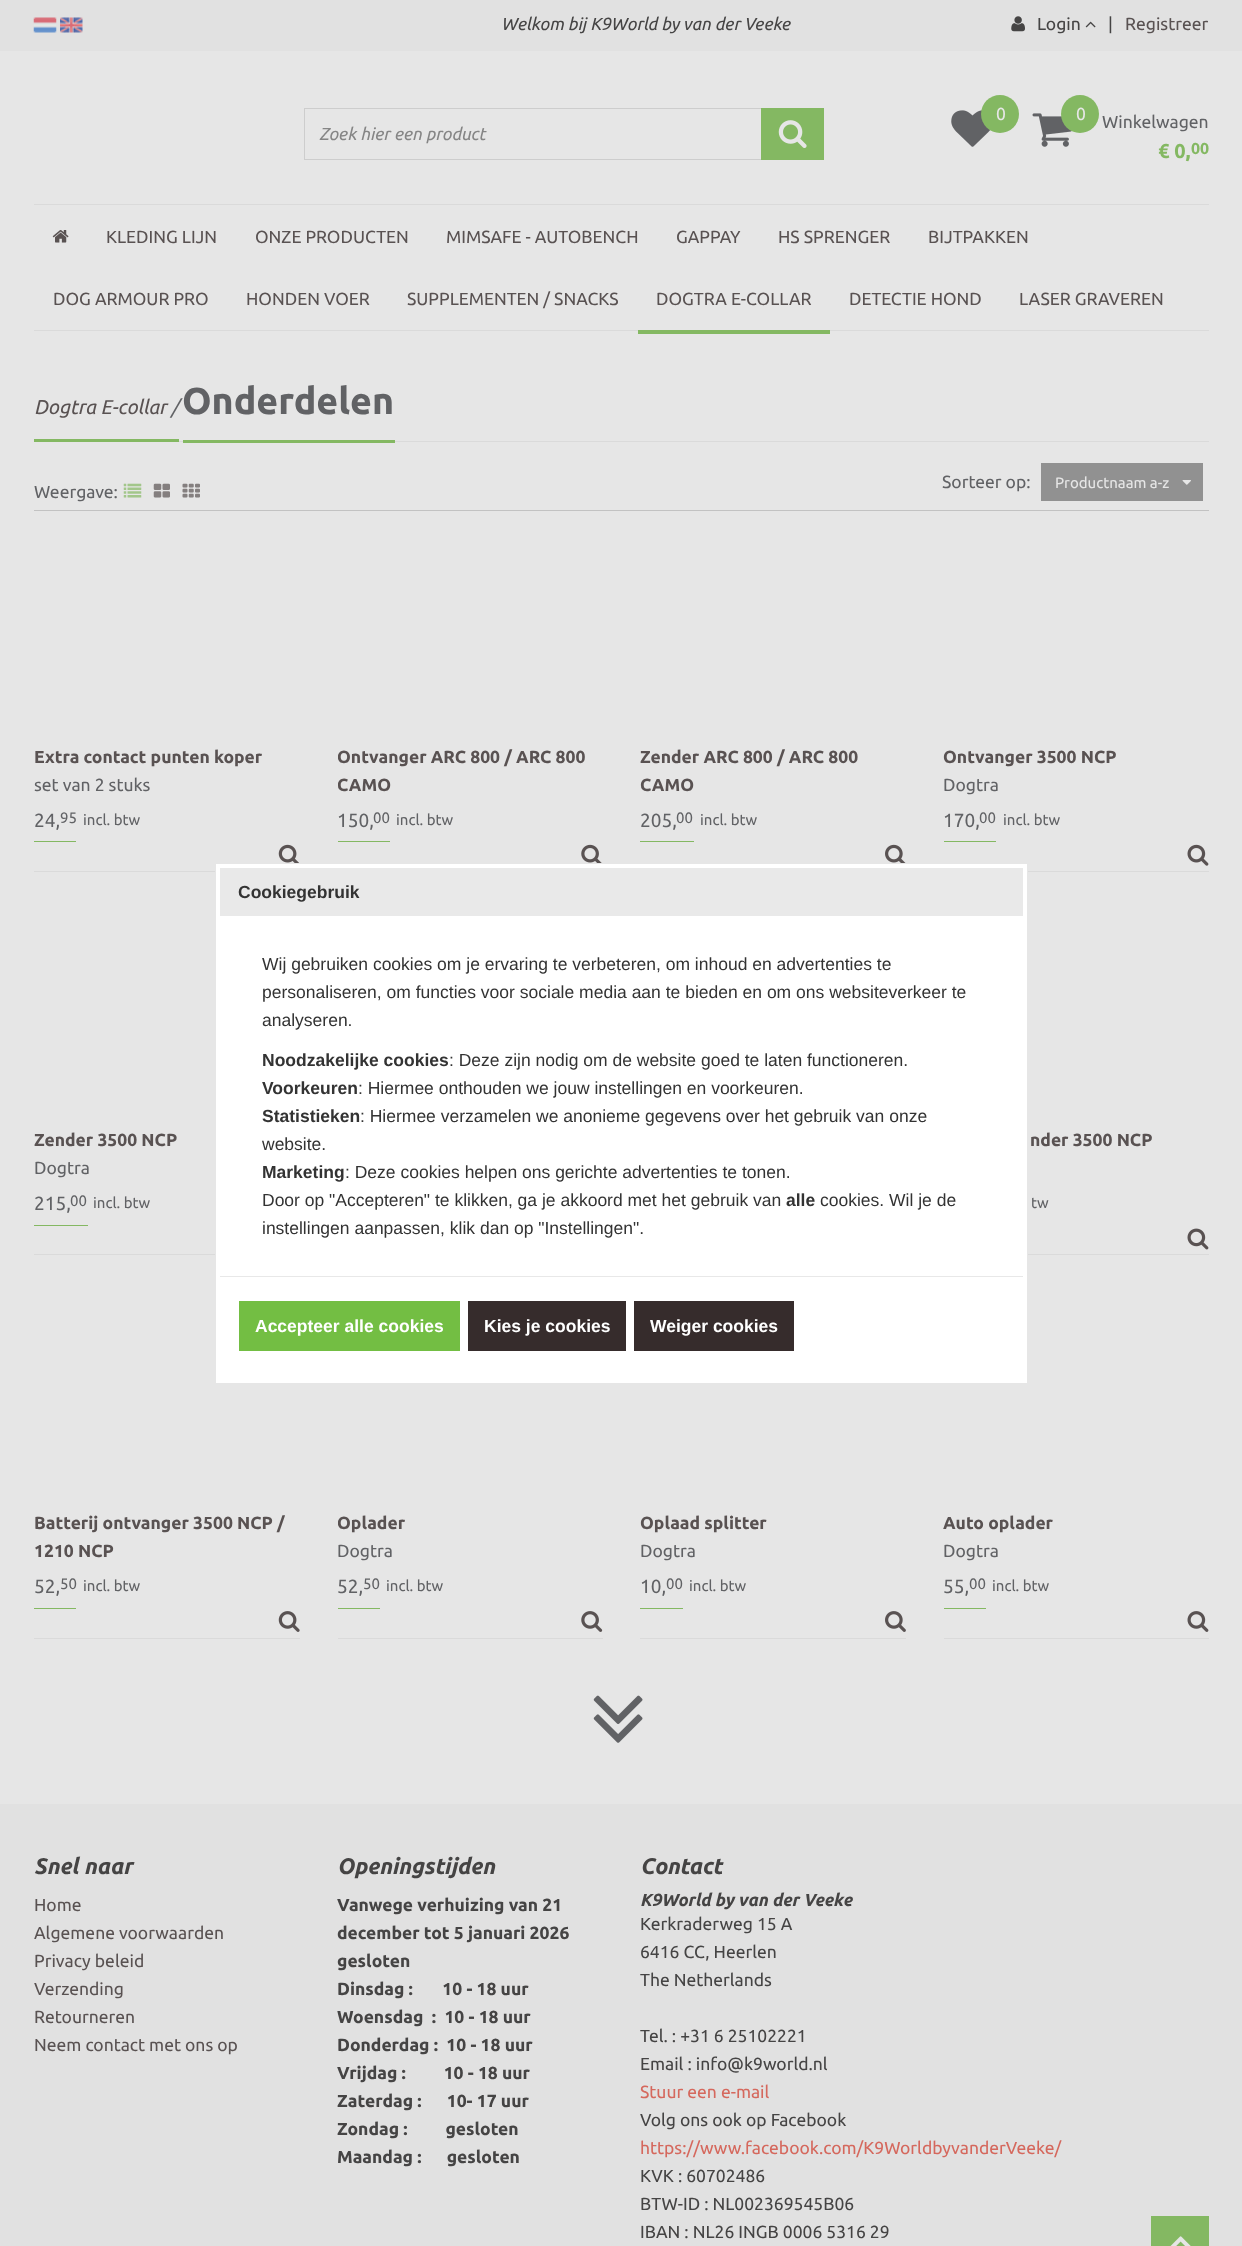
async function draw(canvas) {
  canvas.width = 1242;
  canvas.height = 2246;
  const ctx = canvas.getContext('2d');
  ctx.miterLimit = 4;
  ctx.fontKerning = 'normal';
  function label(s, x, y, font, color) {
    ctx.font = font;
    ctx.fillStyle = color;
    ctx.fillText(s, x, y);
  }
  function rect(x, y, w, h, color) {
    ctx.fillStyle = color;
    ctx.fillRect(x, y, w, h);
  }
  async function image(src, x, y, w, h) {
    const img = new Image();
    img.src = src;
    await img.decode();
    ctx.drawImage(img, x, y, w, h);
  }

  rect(0, 0, 1242, 2246, '#e6e6e6');
  rect(0, 0, 1242, 51, '#e1e1e1');
  await image('assets/img1.png', 33, 17, 24, 16);
  await image('assets/img2.png', 60, 17, 23, 16);
  label('Welkom bij K9World by van der Veeke', 501, 30, 'italic 17.5px Ubuntu', '#454444');
  await image('assets/img3.png', 1011, 16, 14, 16);
  label('Login', 1037, 30, '17.5px Ubuntu', '#454444');
  await image('assets/img4.png', 1085, 21, 11, 7);
  label('|', 1108, 30, '17.5px Ubuntu', '#454444');
  label('Registreer', 1125, 30, '17.5px Ubuntu', '#595252');
  ctx.strokeStyle = '#cdcdcd';
  ctx.strokeRect(304.5, 108.5, 500, 51);
  label('Zoek hier een product', 319, 140, 'italic 17.5px Ubuntu', '#858585');
  rect(761, 108, 63, 52, '#84b862');
  await image('assets/img5.png', 778, 120, 29, 28);
  await image('assets/img6.png', 951, 110, 40, 37);
  ctx.beginPath();
  ctx.arc(1000, 114, 19, 0, 2 * Math.PI);
  ctx.fill();
  label('0', 996, 120, '17.5px Ubuntu', '#e6e6e6');
  await image('assets/img7.png', 1032, 113, 40, 34);
  ctx.fillStyle = '#84b862';
  ctx.beginPath();
  ctx.arc(1080, 114, 19, 0, 2 * Math.PI);
  ctx.fill();
  label('0', 1076, 120, '17.5px Ubuntu', '#e6e6e6');
  label('Winkelwagen', 1102, 128, '17.5px Ubuntu', '#616265');
  label('€ 0,', 1158, 158, 'bold 20px Ubuntu', '#84b862');
  label('00', 1191, 154, 'bold 16px Ubuntu', '#84b862');
  rect(34, 204, 1175, 1, '#dadada');
  rect(34, 330, 1175, 1, '#dadada');
  await image('assets/img8.png', 52, 230, 17, 13);
  label('KLEDING LIJN', 106, 243, '17.5px Ubuntu', '#595252');
  label('ONZE PRODUCTEN', 255, 243, '17.5px Ubuntu', '#595252');
  label('MIMSAFE - AUTOBENCH', 446, 243, '17.5px Ubuntu', '#595252');
  label('GAPPAY', 676, 243, '17.5px Ubuntu', '#595252');
  label('HS SPRENGER', 778, 243, '17.5px Ubuntu', '#595252');
  label('BIJTPAKKEN', 928, 243, '17.5px Ubuntu', '#595252');
  label('DOG ARMOUR PRO', 53, 305, '17.5px Ubuntu', '#595252');
  label('HONDEN VOER', 246, 305, '17.5px Ubuntu', '#595252');
  label('SUPPLEMENTEN / SNACKS', 407, 305, '17.5px Ubuntu', '#595252');
  rect(638, 330, 192, 4, '#84b862');
  label('DOGTRA E-COLLAR', 656, 305, '17.5px Ubuntu', '#595252');
  label('DETECTIE HOND', 849, 305, '17.5px Ubuntu', '#595252');
  label('LASER GRAVEREN', 1019, 305, '17.5px Ubuntu', '#595252');
  rect(34, 439, 145, 3, '#84b862');
  label('Dogtra E-collar', 34, 414, 'italic 20px Ubuntu', '#595252');
  label('/', 171, 414, 'italic 20px Ubuntu', '#616265');
  rect(179, 441, 1030, 1, '#dadada');
  rect(183, 440, 212, 3, '#84b862');
  label('Onderdelen', 182, 414, 'bold 37.5px Ubuntu', '#616265');
  rect(34, 510, 1175, 1, '#c2c2c2');
  label('Weergave:', 34, 498, '17.5px Ubuntu', '#616265');
  await image('assets/img9.png', 123, 483, 19, 15);
  await image('assets/img10.png', 153, 483, 17, 15);
  await image('assets/img11.png', 182, 483, 18, 15);
  label('Sorteer op:', 942, 488, '17.5px Ubuntu', '#616265');
  rect(1041, 463, 162, 38, '#919191');
  label('Productnaam a-z', 1055, 488, '15px Ubuntu', '#e6e6e6');
  await image('assets/img12.png', 1182, 480, 9, 5);
  label('Extra contact punten koper', 34, 763, 'bold 17.5px Ubuntu', '#595252');
  label('set van 2 stuks', 34, 791, '17.5px Ubuntu', '#616265');
  rect(34, 871, 181, 1, '#dadada');
  rect(34, 841, 42, 1, '#84b862');
  label('24,', 34, 827, '19px Ubuntu', '#616265');
  label('95', 60, 823, '15px Ubuntu', '#616265');
  label('incl. btw', 83, 825, '15px Ubuntu', '#616265');
  await image('assets/img13.png', 278, 844, 21, 19);
  ctx.save();
  ctx.beginPath();
  ctx.rect(338, 743, 265, 56);
  ctx.clip();
  label('Ontvanger ARC 800 / ARC 800', 337, 763, 'bold 17.5px Ubuntu', '#595252');
  label('CAMO', 337, 791, 'bold 17.5px Ubuntu', '#595252');
  ctx.restore();
  rect(338, 841, 52, 1, '#84b862');
  label('150,', 337, 827, '19px Ubuntu', '#616265');
  label('00', 373, 823, '15px Ubuntu', '#616265');
  label('incl. btw', 396, 825, '15px Ubuntu', '#616265');
  await image('assets/img14.png', 581, 844, 21, 19);
  label('Zender ARC 800 / ARC 800', 640, 763, 'bold 17.5px Ubuntu', '#595252');
  label('CAMO', 640, 791, 'bold 17.5px Ubuntu', '#595252');
  rect(640, 841, 54, 1, '#84b862');
  label('205,', 640, 827, '19px Ubuntu', '#616265');
  label('00', 676, 823, '15px Ubuntu', '#616265');
  label('incl. btw', 700, 825, '15px Ubuntu', '#616265');
  await image('assets/img15.png', 885, 844, 21, 19);
  label('Ontvanger 3500 NCP', 943, 763, 'bold 17.5px Ubuntu', '#595252');
  label('Dogtra', 943, 791, '17.5px Ubuntu', '#616265');
  rect(1028, 871, 181, 1, '#dadada');
  rect(944, 841, 52, 1, '#84b862');
  label('170,', 943, 827, '19px Ubuntu', '#616265');
  label('00', 979, 823, '15px Ubuntu', '#616265');
  label('incl. btw', 1003, 825, '15px Ubuntu', '#616265');
  await image('assets/img16.png', 1187, 844, 22, 22);
  label('Zender 3500 NCP', 34, 1146, 'bold 17.5px Ubuntu', '#595252');
  label('Dogtra', 34, 1174, '17.5px Ubuntu', '#616265');
  rect(34, 1254, 181, 1, '#dadada');
  rect(34, 1225, 54, 1, '#84b862');
  label('215,', 34, 1210, '19px Ubuntu', '#616265');
  label('00', 70, 1206, '15px Ubuntu', '#616265');
  label('incl. btw', 93, 1208, '15px Ubuntu', '#616265');
  label('nder 3500 NCP', 1030, 1146, 'bold 17.5px Ubuntu', '#595252');
  rect(1028, 1254, 181, 1, '#dadada');
  label('tw', 1031, 1208, '15px Ubuntu', '#616265');
  await image('assets/img17.png', 1187, 1228, 22, 22);
  label('Batterij ontvanger 3500 NCP /', 34, 1529, 'bold 17.5px Ubuntu', '#595252');
  label('1210 NCP', 34, 1557, 'bold 17.5px Ubuntu', '#595252');
  rect(34, 1638, 266, 1, '#dadada');
  rect(34, 1608, 42, 1, '#84b862');
  label('52,', 34, 1593, '19px Ubuntu', '#616265');
  label('50', 60, 1589, '15px Ubuntu', '#616265');
  label('incl. btw', 83, 1591, '15px Ubuntu', '#616265');
  await image('assets/img18.png', 278, 1611, 22, 21);
  ctx.save();
  ctx.beginPath();
  ctx.rect(338, 1509, 265, 56);
  ctx.clip();
  label('Oplader', 337, 1529, 'bold 17.5px Ubuntu', '#595252');
  ctx.restore();
  label('Dogtra', 337, 1557, '17.5px Ubuntu', '#616265');
  rect(338, 1638, 265, 1, '#dadada');
  rect(338, 1608, 42, 1, '#84b862');
  label('52,', 337, 1593, '19px Ubuntu', '#616265');
  label('50', 363, 1589, '15px Ubuntu', '#616265');
  label('incl. btw', 386, 1591, '15px Ubuntu', '#616265');
  await image('assets/img19.png', 581, 1611, 22, 21);
  label('Oplaad splitter', 640, 1529, 'bold 17.5px Ubuntu', '#595252');
  label('Dogtra', 640, 1557, '17.5px Ubuntu', '#616265');
  rect(640, 1638, 266, 1, '#dadada');
  rect(640, 1608, 43, 1, '#84b862');
  label('10,', 640, 1593, '19px Ubuntu', '#616265');
  label('00', 666, 1589, '15px Ubuntu', '#616265');
  label('incl. btw', 689, 1591, '15px Ubuntu', '#616265');
  await image('assets/img20.png', 885, 1611, 21, 21);
  label('Auto oplader', 943, 1529, 'bold 17.5px Ubuntu', '#595252');
  label('Dogtra', 943, 1557, '17.5px Ubuntu', '#616265');
  rect(944, 1638, 265, 1, '#dadada');
  rect(944, 1608, 42, 1, '#84b862');
  label('55,', 943, 1593, '19px Ubuntu', '#616265');
  label('00', 969, 1589, '15px Ubuntu', '#616265');
  label('incl. btw', 992, 1591, '15px Ubuntu', '#616265');
  await image('assets/img21.png', 1187, 1611, 22, 21);
  await image('assets/img22.png', 593, 1695, 50, 48);
  rect(216, 864, 811, 519, '#fff');
  rect(220, 868, 803, 48, '#e9e9e9');
  label('Cookiegebruik', 238, 898, 'bold 17.5px Liberation Sans', '#333');
  label('Wij gebruiken cookies om je ervaring te verbeteren, om inhoud en advertenties te', 262, 970, '17.5px Liberation Sans', '#333');
  label('personaliseren, om functies voor sociale media aan te bieden en om ons websiteverkeer te', 262, 998, '17.5px Liberation Sans', '#333');
  label('analyseren.', 262, 1026, '17.5px Liberation Sans', '#333');
  label('Noodzakelijke cookies', 262, 1066, 'bold 17.5px Liberation Sans', '#333');
  label(': Deze zijn nodig om de website goed te laten functioneren.', 449, 1066, '17.5px Liberation Sans', '#333');
  label('Voorkeuren', 262, 1094, 'bold 17.5px Liberation Sans', '#333');
  label(': Hiermee onthouden we jouw instellingen en voorkeuren.', 358, 1094, '17.5px Liberation Sans', '#333');
  label('Statistieken', 262, 1122, 'bold 17.5px Liberation Sans', '#333');
  label(': Hiermee verzamelen we anonieme gegevens over het gebruik van onze', 360, 1122, '17.5px Liberation Sans', '#333');
  label('website.', 262, 1150, '17.5px Liberation Sans', '#333');
  label('Marketing', 262, 1178, 'bold 17.5px Liberation Sans', '#333');
  label(': Deze cookies helpen ons gerichte advertenties te tonen.', 345, 1178, '17.5px Liberation Sans', '#333');
  label('Door op "Accepteren" te klikken, ga je akkoord met het gebruik van', 262, 1206, '17.5px Liberation Sans', '#333');
  label('alle', 786, 1206, 'bold 17.5px Liberation Sans', '#333');
  label('cookies. Wil je de', 820, 1206, '17.5px Liberation Sans', '#333');
  label('instellingen aanpassen, klik dan op "Instellingen".', 262, 1234, '17.5px Liberation Sans', '#333');
  rect(220, 1276, 803, 1, '#e8e8e8');
  rect(239, 1301, 221, 50, '#73be43');
  label('Accepteer alle cookies', 255, 1332, 'bold 17.5px Liberation Sans', '#fff');
  rect(468, 1301, 158, 50, '#362c2c');
  label('Kies je cookies', 484, 1332, 'bold 17.5px Liberation Sans', '#fff');
  rect(634, 1301, 160, 50, '#362c2c');
  label('Weiger cookies', 650, 1332, 'bold 17.5px Liberation Sans', '#fff');
  rect(0, 1804, 1242, 442, '#e1e1e1');
  label('Snel naar', 34, 1874, 'italic bold 22.5px Ubuntu', '#454444');
  label('Home', 34, 1911, '17.5px Ubuntu', '#595252');
  label('Algemene voorwaarden', 34, 1939, '17.5px Ubuntu', '#595252');
  label('Privacy beleid', 34, 1967, '17.5px Ubuntu', '#595252');
  label('Verzending', 34, 1995, '17.5px Ubuntu', '#595252');
  label('Retourneren', 34, 2023, '17.5px Ubuntu', '#595252');
  label('Neem contact met ons op', 34, 2051, '17.5px Ubuntu', '#595252');
  label('Openingstijden', 337, 1874, 'italic bold 22.5px Ubuntu', '#454444');
  label('Vanwege verhuizing van 21', 337, 1911, 'bold 17.5px Ubuntu', '#454444');
  label('december tot 5 januari 2026', 337, 1939, 'bold 17.5px Ubuntu', '#454444');
  label('gesloten', 337, 1967, 'bold 17.5px Ubuntu', '#454444');
  label('Dinsdag :       10 - 18 uur', 337, 1995, 'bold 17.5px Ubuntu', '#454444');
  label('Woensdag  :  10 - 18 uur', 337, 2023, 'bold 17.5px Ubuntu', '#454444');
  label('Donderdag :  10 - 18 uur', 337, 2051, 'bold 17.5px Ubuntu', '#454444');
  label('Vrijdag :         10 - 18 uur', 337, 2079, 'bold 17.5px Ubuntu', '#454444');
  label('Zaterdag :      10- 17 uur', 337, 2107, 'bold 17.5px Ubuntu', '#454444');
  label('Zondag :         gesloten', 337, 2135, 'bold 17.5px Ubuntu', '#454444');
  label('Maandag :      gesloten', 337, 2163, 'bold 17.5px Ubuntu', '#454444');
  label('Contact', 640, 1874, 'italic bold 22.5px Ubuntu', '#454444');
  label('K9World by van der Veeke', 640, 1906, 'italic bold 17.5px Ubuntu', '#454444');
  label('Kerkraderweg 15 A', 640, 1930, '17.5px Ubuntu', '#454444');
  label('6416 CC, Heerlen', 640, 1958, '17.5px Ubuntu', '#454444');
  label('The Netherlands', 640, 1986, '17.5px Ubuntu', '#454444');
  label('Tel. : +31 6 25102221', 640, 2042, '17.5px Ubuntu', '#454444');
  label('Email : info@k9world.nl', 640, 2070, '17.5px Ubuntu', '#454444');
  label('Stuur een e-mail', 640, 2098, '17.5px Ubuntu', '#d5685d');
  label('Volg ons ook op Facebook', 640, 2126, '17.5px Ubuntu', '#454444');
  label('https://www.facebook.com/K9WorldbyvanderVeeke/', 640, 2154, '17.5px Ubuntu', '#d5685d');
  label('KVK : 60702486', 640, 2182, '17.5px Ubuntu', '#454444');
  label('BTW-ID : NL002369545B06', 640, 2210, '17.5px Ubuntu', '#454444');
  label('IBAN : NL26 INGB 0006 5316 29', 640, 2238, '17.5px Ubuntu', '#454444');
  rect(1151, 2216, 58, 30, '#84b862');
  await image('assets/img23.png', 1170, 2236, 21, 10);
}

draw(document.querySelector('canvas'));
